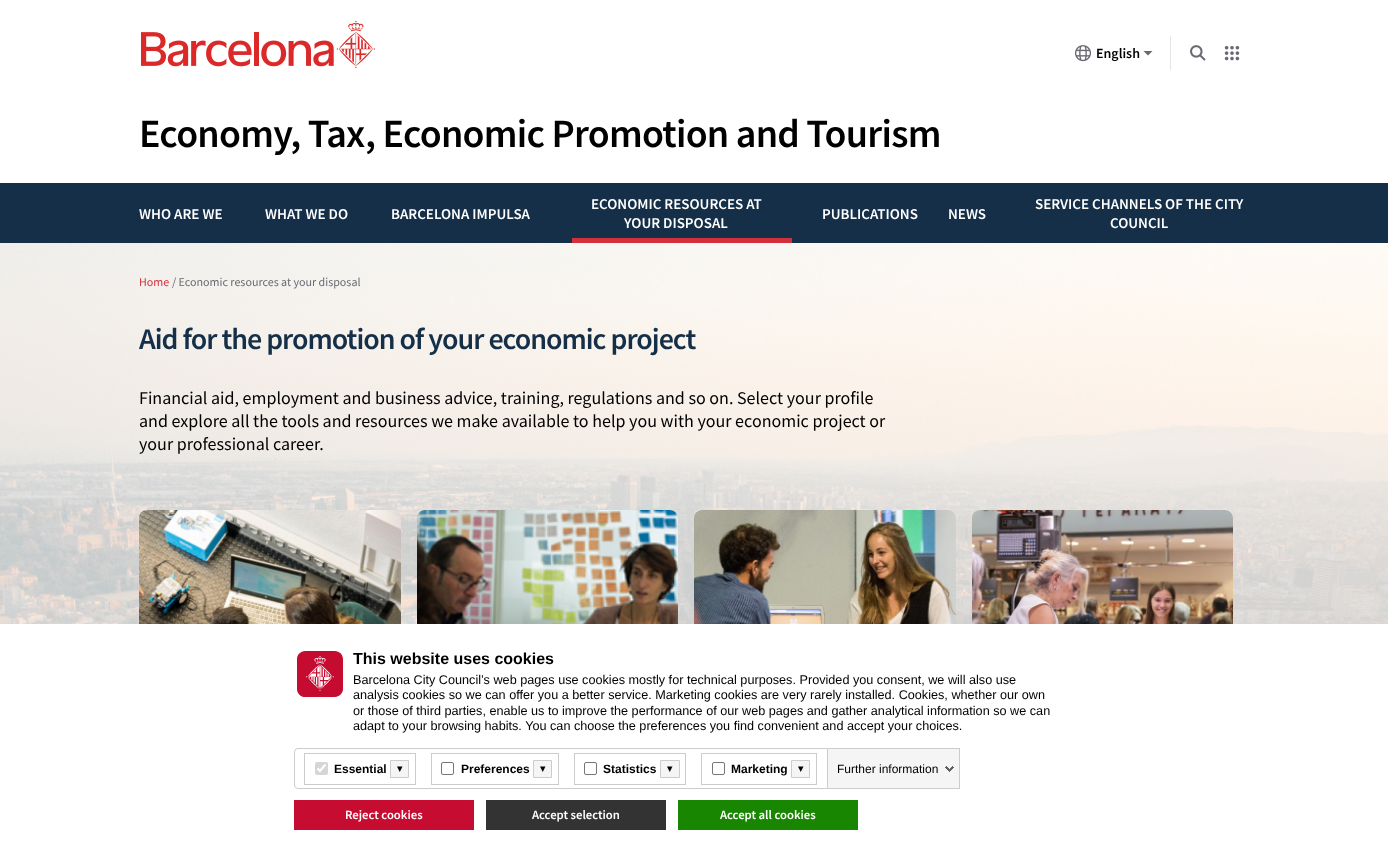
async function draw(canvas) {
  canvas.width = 1388;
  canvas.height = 848;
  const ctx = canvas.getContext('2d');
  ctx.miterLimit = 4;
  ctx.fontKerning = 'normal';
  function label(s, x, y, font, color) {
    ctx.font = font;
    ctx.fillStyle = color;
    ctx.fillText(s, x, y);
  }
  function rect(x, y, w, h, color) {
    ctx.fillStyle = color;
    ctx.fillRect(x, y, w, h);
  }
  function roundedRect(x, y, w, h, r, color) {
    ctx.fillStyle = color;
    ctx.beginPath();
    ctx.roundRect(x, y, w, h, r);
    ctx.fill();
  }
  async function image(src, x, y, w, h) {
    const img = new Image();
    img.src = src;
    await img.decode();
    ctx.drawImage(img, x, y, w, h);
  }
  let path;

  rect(0, 0, 1388, 848, '#fff');
  await image('assets/img1.png', 141, 20, 234, 48);
  rect(1170, 36, 1, 34, '#e5e5e5');
  await image('assets/img2.png', 1075, 45, 16, 17);
  label('English', 1096, 58, '600 14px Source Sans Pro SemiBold', '#000');
  ctx.fillStyle = '#696973';
  path = new Path2D('M1143.5 51L1148 55.5L1152.5 51Z');
  ctx.fill(path);
  await image('assets/img3.png', 1190, 45, 16, 16);
  await image('assets/img4.png', 1224, 45, 16, 16);
  ctx.letterSpacing = '-0.75px';
  label('Economy, Tax, Economic Promotion and Tourism', 139, 147, '600 40px Source Sans Pro SemiBold', '#000');
  rect(0, 183, 1388, 60, '#142f47');
  ctx.letterSpacing = '0px';
  label('WHO ARE WE', 139, 219, '600 15px Source Sans Pro SemiBold', '#fff');
  label('WHAT WE DO', 265, 219, '600 15px Source Sans Pro SemiBold', '#fff');
  label('BARCELONA IMPULSA', 391, 219, '600 15px Source Sans Pro SemiBold', '#fff');
  rect(572, 238, 220, 5, '#d2303c');
  label('ECONOMIC RESOURCES AT', 591, 209, '600 15px Source Sans Pro SemiBold', '#fff');
  label('YOUR DISPOSAL', 624, 228, '600 15px Source Sans Pro SemiBold', '#fff');
  label('PUBLICATIONS', 822, 219, '600 15px Source Sans Pro SemiBold', '#fff');
  label('NEWS', 948, 219, '600 15px Source Sans Pro SemiBold', '#fff');
  label('SERVICE CHANNELS OF THE CITY', 1035, 209, '600 15px Source Sans Pro SemiBold', '#fff');
  label('COUNCIL', 1110, 228, '600 15px Source Sans Pro SemiBold', '#fff');
  await image('assets/img5.png', 0, 243, 1388, 381);
  label('Home', 139, 286, '12px Source Sans Pro', '#d2303c');
  label('/ Economic resources at your disposal', 172, 286, '12px Source Sans Pro', '#696973');
  ctx.letterSpacing = '-1px';
  label('Aid for the promotion of your economic project', 139, 349, '600 30px Source Sans Pro SemiBold', '#142f47');
  ctx.letterSpacing = '0px';
  label('Financial aid, employment and business advice, training, regulations and so on. Select your profile', 139, 404, '18px Source Sans Pro', '#000');
  label('and explore all the tools and resources we make available to help you with your economic project or', 139, 427, '18px Source Sans Pro', '#000');
  label('your professional career.', 139, 450, '18px Source Sans Pro', '#000');
  await image('assets/img6.png', 139, 510, 262, 114);
  await image('assets/img7.png', 417, 510, 261, 114);
  await image('assets/img8.png', 694, 510, 262, 114);
  await image('assets/img9.png', 972, 510, 261, 114);
  await image('assets/img10.png', 297, 651, 46, 46);
  label('This website uses cookies', 353, 664, 'bold 16px Liberation Sans', '#000');
  label('Barcelona City Council’s web pages use cookies mostly for technical purposes. Provided you consent, we will also use', 353, 684, '12.67px Liberation Sans', '#000');
  label('analysis cookies so we can offer you a better service. Marketing cookies are very rarely installed. Cookies, whether our own', 353, 699, '12.67px Liberation Sans', '#000');
  label('or those of third parties, enable us to improve the performance of our web pages and gather analytical information so we can', 353, 715, '12.67px Liberation Sans', '#000');
  label('adapt to your browsing habits. You can choose the preferences you find convenient and accept your choices.', 353, 730, '12.67px Liberation Sans', '#000');
  ctx.beginPath();
  ctx.roundRect(294.5, 748.5, 533, 40, [3.5, 0, 0, 3.5]);
  ctx.strokeStyle = '#ccc';
  ctx.stroke();
  ctx.strokeRect(304.5, 753.5, 111, 31);
  roundedRect(315, 762, 13, 13, 2, '#d6d6d6');
  path = new Path2D('M317.5 768.5L320 771L325.5 764.5');
  ctx.strokeStyle = '#fff';
  ctx.lineWidth = 2.1;
  ctx.stroke(path);
  label('Essential', 334, 773, 'bold 12px Liberation Sans', '#000');
  ctx.fillStyle = '#f5f5f5';
  ctx.beginPath();
  ctx.rect(390.5, 760.5, 18, 17);
  ctx.fill();
  ctx.strokeStyle = '#ccc';
  ctx.lineWidth = 1;
  ctx.stroke();
  label('▾', 397, 772, '11px DejaVu Sans', '#000');
  ctx.strokeRect(431.5, 753.5, 127, 31);
  ctx.beginPath();
  ctx.roundRect(441.5, 762.5, 12, 12, 1.5);
  ctx.strokeStyle = '#767676';
  ctx.stroke();
  label('Preferences', 461, 773, 'bold 12px Liberation Sans', '#000');
  ctx.fillStyle = '#f5f5f5';
  ctx.beginPath();
  ctx.rect(533.5, 760.5, 18, 17);
  ctx.fill();
  ctx.strokeStyle = '#ccc';
  ctx.stroke();
  label('▾', 540, 772, '11px DejaVu Sans', '#000');
  ctx.strokeRect(574.5, 753.5, 111, 31);
  ctx.beginPath();
  ctx.roundRect(584.5, 762.5, 12, 12, 1.5);
  ctx.strokeStyle = '#767676';
  ctx.stroke();
  label('Statistics', 603, 773, 'bold 12px Liberation Sans', '#000');
  ctx.fillStyle = '#f5f5f5';
  ctx.beginPath();
  ctx.rect(660.5, 760.5, 19, 17);
  ctx.fill();
  ctx.strokeStyle = '#ccc';
  ctx.stroke();
  label('▾', 667, 772, '11px DejaVu Sans', '#000');
  ctx.strokeRect(701.5, 753.5, 115, 31);
  ctx.beginPath();
  ctx.roundRect(712.5, 762.5, 12, 12, 1.5);
  ctx.strokeStyle = '#767676';
  ctx.stroke();
  label('Marketing', 731, 773, 'bold 12px Liberation Sans', '#000');
  ctx.fillStyle = '#f5f5f5';
  ctx.beginPath();
  ctx.rect(791.5, 760.5, 18, 17);
  ctx.fill();
  ctx.strokeStyle = '#ccc';
  ctx.stroke();
  label('▾', 798, 772, '11px DejaVu Sans', '#000');
  rect(828, 749, 131, 39, '#f5f5f5');
  rect(828, 748, 132, 1, '#ccc');
  rect(959, 748, 1, 41, '#ccc');
  rect(828, 788, 132, 1, '#ccc');
  await image('assets/img11.png', 945, 766, 9, 6);
  label('Further information', 837, 773, '12px Liberation Sans', '#000');
  rect(294, 800, 180, 30, '#c60c30');
  label('Reject cookies', 345, 819, '600 12.67px Source Sans Pro SemiBold', '#fff');
  rect(486, 800, 180, 30, '#333');
  label('Accept selection', 532, 819, '600 12.67px Source Sans Pro SemiBold', '#fff');
  rect(678, 800, 180, 30, '#188600');
  label('Accept all cookies', 720, 819, '600 12.67px Source Sans Pro SemiBold', '#fff');
}

draw(document.querySelector('canvas'));
